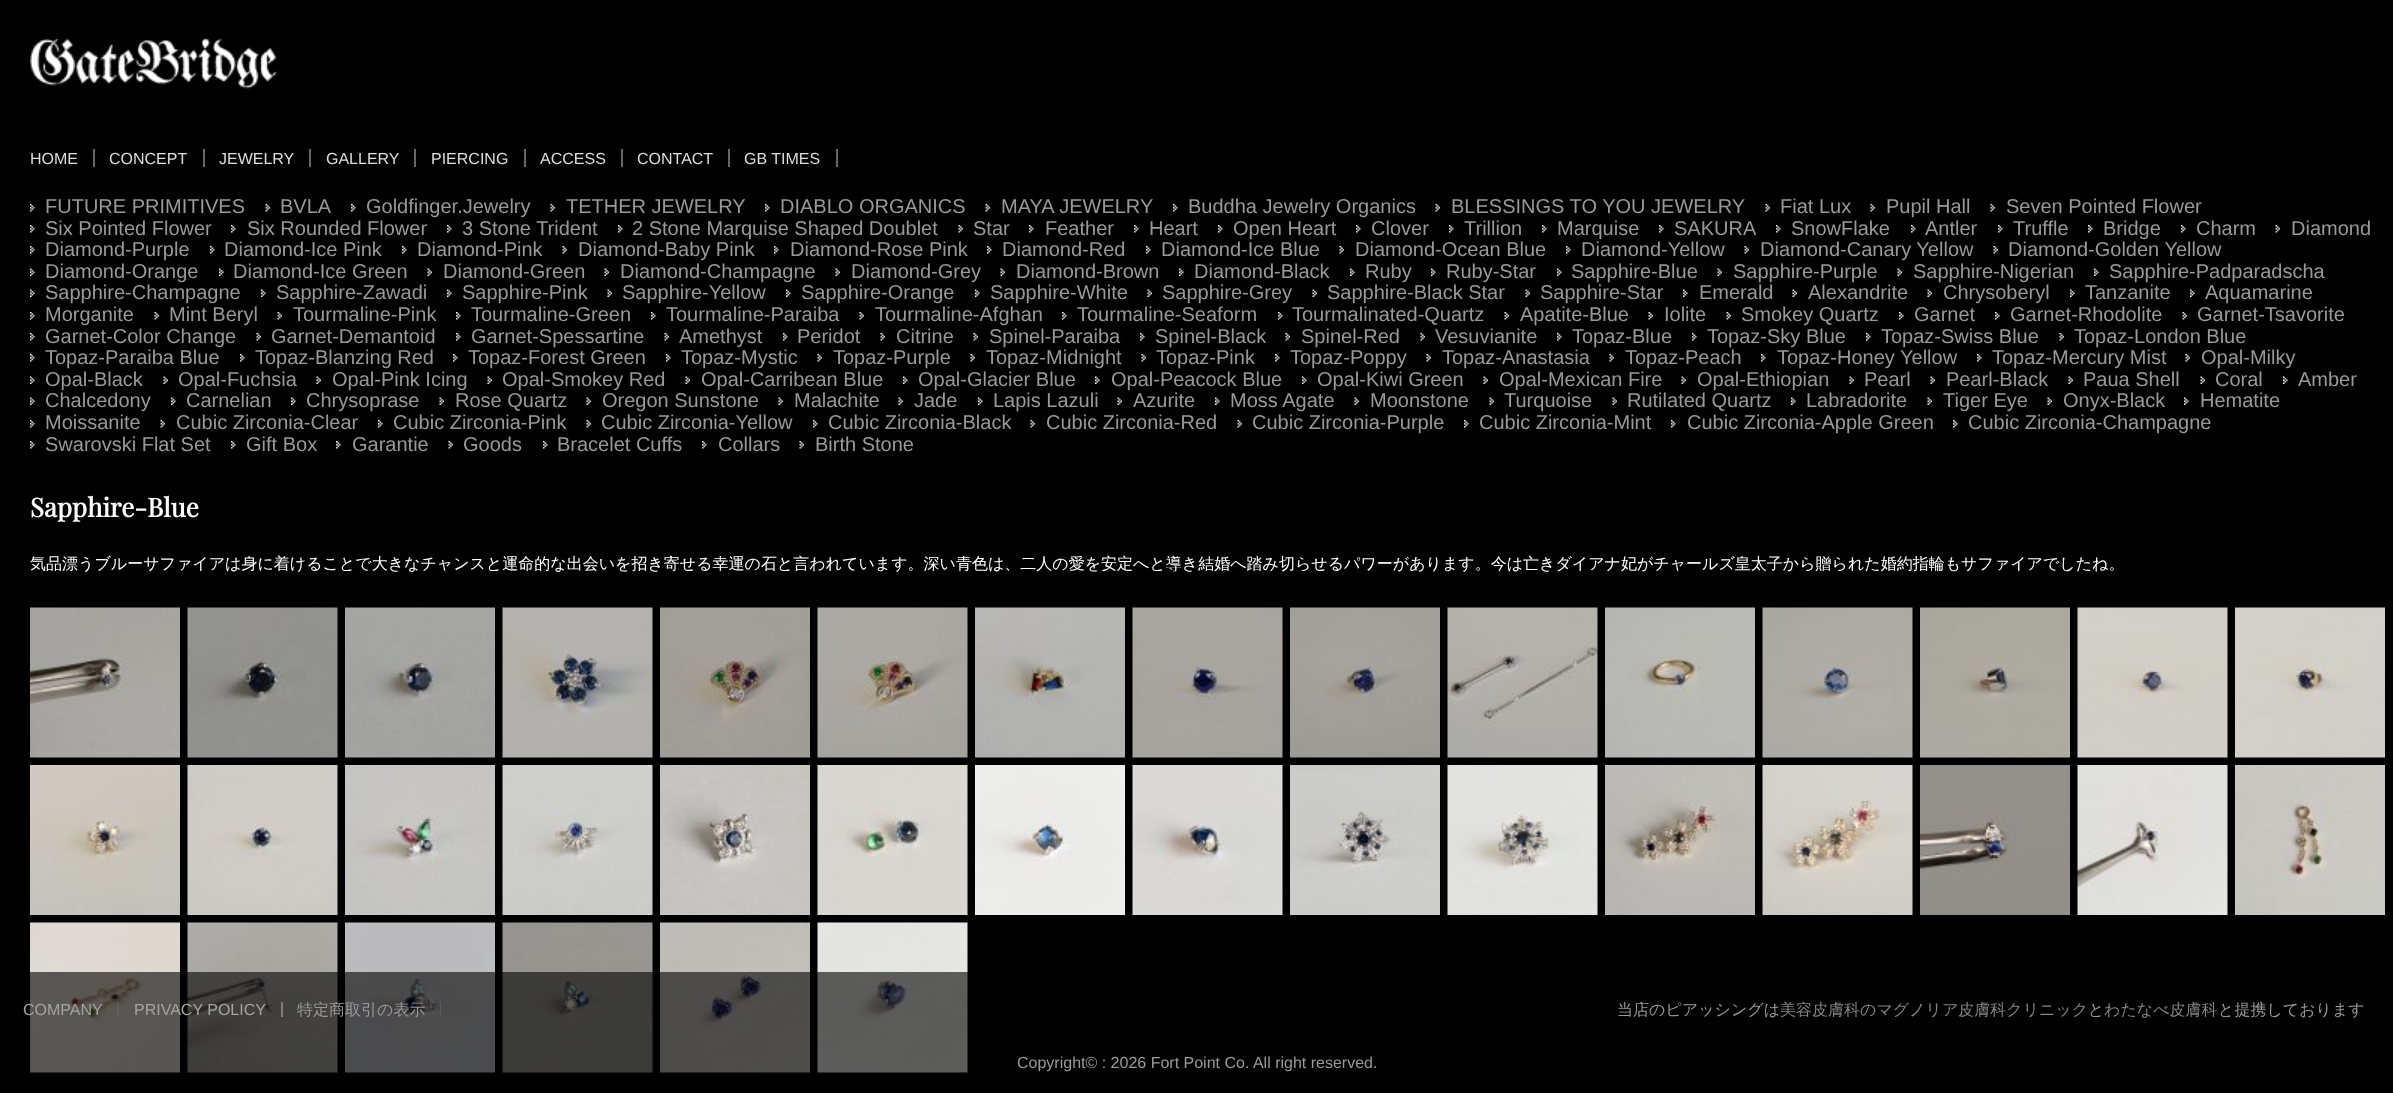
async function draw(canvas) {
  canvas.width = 2393;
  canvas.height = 1093;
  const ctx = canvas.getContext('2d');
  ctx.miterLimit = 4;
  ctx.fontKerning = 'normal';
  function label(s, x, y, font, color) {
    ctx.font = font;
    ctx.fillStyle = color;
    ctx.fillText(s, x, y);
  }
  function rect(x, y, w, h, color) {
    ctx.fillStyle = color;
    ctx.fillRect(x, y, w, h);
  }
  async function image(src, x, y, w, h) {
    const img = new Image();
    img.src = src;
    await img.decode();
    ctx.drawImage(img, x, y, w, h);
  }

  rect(0, 0, 2393, 1093, '#000');
  await image('assets/img1.png', 30, 38, 247, 51);
  rect(93, 149, 2, 18, '#666');
  label('HOME', 30, 164, '16px Liberation Sans', '#ddd');
  rect(203, 149, 2, 18, '#666');
  label('CONCEPT', 109, 164, '16px Liberation Sans', '#ddd');
  rect(309, 149, 2, 18, '#666');
  label('JEWELRY', 219, 164, '16px Liberation Sans', '#ddd');
  rect(414, 149, 2, 18, '#666');
  label('GALLERY', 326, 164, '16px Liberation Sans', '#ddd');
  rect(524, 149, 2, 18, '#666');
  label('PIERCING', 431, 164, '16px Liberation Sans', '#ddd');
  rect(621, 149, 2, 18, '#666');
  label('ACCESS', 540, 164, '16px Liberation Sans', '#ddd');
  rect(728, 149, 2, 18, '#666');
  label('CONTACT', 637, 164, '16px Liberation Sans', '#ddd');
  rect(836, 149, 2, 18, '#666');
  label('GB TIMES', 744, 164, '16px Liberation Sans', '#ddd');
  await image('assets/img2.png', 30, 204, 5, 8);
  label('FUTURE PRIMITIVES', 45, 213, '20px Liberation Sans', '#999');
  await image('assets/img3.png', 265, 204, 5, 8);
  label('BVLA', 280, 213, '20px Liberation Sans', '#999');
  await image('assets/img4.png', 351, 204, 5, 8);
  label('Goldfinger.Jewelry', 366, 213, '20px Liberation Sans', '#999');
  await image('assets/img5.png', 550, 204, 5, 8);
  label('TETHER JEWELRY', 566, 213, '20px Liberation Sans', '#999');
  await image('assets/img2.png', 765, 204, 5, 8);
  label('DIABLO ORGANICS', 780, 213, '20px Liberation Sans', '#999');
  await image('assets/img3.png', 985, 204, 5, 8);
  label('MAYA JEWELRY', 1001, 213, '20px Liberation Sans', '#999');
  await image('assets/img4.png', 1173, 204, 5, 8);
  label('Buddha Jewelry Organics', 1188, 213, '20px Liberation Sans', '#999');
  await image('assets/img5.png', 1435, 204, 5, 8);
  label('BLESSINGS TO YOU JEWELRY', 1451, 213, '20px Liberation Sans', '#999');
  await image('assets/img3.png', 1765, 204, 5, 8);
  label('Fiat Lux', 1780, 213, '20px Liberation Sans', '#999');
  await image('assets/img3.png', 1870, 204, 5, 8);
  label('Pupil Hall', 1886, 213, '20px Liberation Sans', '#999');
  await image('assets/img3.png', 1990, 204, 5, 8);
  label('Seven Pointed Flower', 2006, 213, '20px Liberation Sans', '#999');
  await image('assets/img2.png', 30, 225, 5, 8);
  label('Six Pointed Flower', 45, 235, '20px Liberation Sans', '#999');
  await image('assets/img2.png', 231, 225, 5, 8);
  label('Six Rounded Flower', 247, 235, '20px Liberation Sans', '#999');
  await image('assets/img4.png', 447, 225, 5, 8);
  label('3 Stone Trident', 462, 235, '20px Liberation Sans', '#999');
  await image('assets/img2.png', 618, 225, 5, 8);
  label('2 Stone Marquise Shaped Doublet', 632, 235, '20px Liberation Sans', '#999');
  await image('assets/img3.png', 958, 225, 5, 8);
  label('Star', 973, 235, '20px Liberation Sans', '#999');
  await image('assets/img4.png', 1029, 225, 5, 8);
  label('Feather', 1045, 235, '20px Liberation Sans', '#999');
  await image('assets/img4.png', 1134, 225, 5, 8);
  label('Heart', 1149, 235, '20px Liberation Sans', '#999');
  await image('assets/img4.png', 1218, 225, 5, 8);
  label('Open Heart', 1233, 235, '20px Liberation Sans', '#999');
  await image('assets/img4.png', 1356, 225, 5, 8);
  label('Clover', 1371, 235, '20px Liberation Sans', '#999');
  await image('assets/img2.png', 1449, 225, 5, 8);
  label('Trillion', 1464, 235, '20px Liberation Sans', '#999');
  await image('assets/img2.png', 1542, 225, 5, 8);
  label('Marquise', 1557, 235, '20px Liberation Sans', '#999');
  await image('assets/img2.png', 1659, 225, 5, 8);
  label('SAKURA', 1674, 235, '20px Liberation Sans', '#999');
  await image('assets/img2.png', 1776, 225, 5, 8);
  label('SnowFlake', 1791, 235, '20px Liberation Sans', '#999');
  await image('assets/img4.png', 1911, 225, 5, 8);
  label('Antler', 1925, 235, '20px Liberation Sans', '#999');
  await image('assets/img4.png', 1998, 225, 5, 8);
  label('Truffle', 2013, 235, '20px Liberation Sans', '#999');
  await image('assets/img4.png', 2088, 225, 5, 8);
  label('Bridge', 2103, 235, '20px Liberation Sans', '#999');
  await image('assets/img2.png', 2181, 225, 5, 8);
  label('Charm', 2196, 235, '20px Liberation Sans', '#999');
  await image('assets/img5.png', 2275, 225, 5, 8);
  label('Diamond', 2291, 235, '20px Liberation Sans', '#999');
  await image('assets/img2.png', 30, 246, 5, 8);
  label('Diamond-Purple', 45, 256, '20px Liberation Sans', '#999');
  await image('assets/img2.png', 210, 246, 5, 8);
  label('Diamond-Ice Pink', 224, 256, '20px Liberation Sans', '#999');
  await image('assets/img4.png', 402, 246, 5, 8);
  label('Diamond-Pink', 417, 256, '20px Liberation Sans', '#999');
  await image('assets/img5.png', 562, 246, 5, 8);
  label('Diamond-Baby Pink', 578, 256, '20px Liberation Sans', '#999');
  await image('assets/img2.png', 774, 246, 5, 8);
  label('Diamond-Rose Pink', 790, 256, '20px Liberation Sans', '#999');
  await image('assets/img2.png', 987, 246, 5, 8);
  label('Diamond-Red', 1002, 256, '20px Liberation Sans', '#999');
  await image('assets/img4.png', 1146, 246, 5, 8);
  label('Diamond-Ice Blue', 1161, 256, '20px Liberation Sans', '#999');
  await image('assets/img5.png', 1339, 246, 5, 8);
  label('Diamond-Ocean Blue', 1355, 256, '20px Liberation Sans', '#999');
  await image('assets/img2.png', 1566, 246, 5, 8);
  label('Diamond-Yellow', 1581, 256, '20px Liberation Sans', '#999');
  await image('assets/img3.png', 1744, 246, 5, 8);
  label('Diamond-Canary Yellow', 1760, 256, '20px Liberation Sans', '#999');
  await image('assets/img3.png', 1993, 246, 5, 8);
  label('Diamond-Golden Yellow', 2008, 256, '20px Liberation Sans', '#999');
  await image('assets/img6.png', 30, 268, 5, 8);
  label('Diamond-Orange', 45, 278, '20px Liberation Sans', '#999');
  await image('assets/img6.png', 219, 268, 5, 8);
  label('Diamond-Ice Green', 233, 278, '20px Liberation Sans', '#999');
  await image('assets/img7.png', 427, 268, 5, 8);
  label('Diamond-Green', 443, 278, '20px Liberation Sans', '#999');
  await image('assets/img7.png', 604, 268, 5, 8);
  label('Diamond-Champagne', 620, 278, '20px Liberation Sans', '#999');
  await image('assets/img8.png', 835, 268, 5, 8);
  label('Diamond-Grey', 851, 278, '20px Liberation Sans', '#999');
  await image('assets/img8.png', 1000, 268, 5, 8);
  label('Diamond-Brown', 1016, 278, '20px Liberation Sans', '#999');
  await image('assets/img9.png', 1179, 268, 5, 8);
  label('Diamond-Black', 1194, 278, '20px Liberation Sans', '#999');
  await image('assets/img9.png', 1350, 268, 5, 8);
  label('Ruby', 1365, 278, '20px Liberation Sans', '#999');
  await image('assets/img6.png', 1431, 268, 5, 8);
  label('Ruby-Star', 1446, 278, '20px Liberation Sans', '#999');
  await image('assets/img6.png', 1557, 268, 5, 8);
  label('Sapphire-Blue', 1571, 278, '20px Liberation Sans', '#999');
  await image('assets/img8.png', 1717, 268, 5, 8);
  label('Sapphire-Purple', 1733, 278, '20px Liberation Sans', '#999');
  await image('assets/img7.png', 1897, 268, 5, 8);
  label('Sapphire-Nigerian', 1913, 278, '20px Liberation Sans', '#999');
  await image('assets/img9.png', 2094, 268, 5, 8);
  label('Sapphire-Padparadscha', 2109, 278, '20px Liberation Sans', '#999');
  await image('assets/img6.png', 30, 289, 5, 8);
  label('Sapphire-Champagne', 45, 299, '20px Liberation Sans', '#999');
  await image('assets/img9.png', 261, 289, 5, 8);
  label('Sapphire-Zawadi', 276, 299, '20px Liberation Sans', '#999');
  await image('assets/img9.png', 447, 289, 5, 8);
  label('Sapphire-Pink', 462, 299, '20px Liberation Sans', '#999');
  await image('assets/img7.png', 607, 289, 5, 8);
  label('Sapphire-Yellow', 622, 299, '20px Liberation Sans', '#999');
  await image('assets/img6.png', 786, 289, 5, 8);
  label('Sapphire-Orange', 801, 299, '20px Liberation Sans', '#999');
  await image('assets/img6.png', 975, 289, 5, 8);
  label('Sapphire-White', 990, 299, '20px Liberation Sans', '#999');
  await image('assets/img7.png', 1147, 289, 5, 8);
  label('Sapphire-Grey', 1162, 299, '20px Liberation Sans', '#999');
  await image('assets/img7.png', 1312, 289, 5, 8);
  label('Sapphire-Black Star', 1327, 299, '20px Liberation Sans', '#999');
  await image('assets/img8.png', 1525, 289, 5, 8);
  label('Sapphire-Star', 1540, 299, '20px Liberation Sans', '#999');
  await image('assets/img6.png', 1683, 289, 5, 8);
  label('Emerald', 1699, 299, '20px Liberation Sans', '#999');
  await image('assets/img8.png', 1792, 289, 5, 8);
  label('Alexandrite', 1808, 299, '20px Liberation Sans', '#999');
  await image('assets/img7.png', 1927, 289, 5, 8);
  label('Chrysoberyl', 1943, 299, '20px Liberation Sans', '#999');
  await image('assets/img6.png', 2070, 289, 5, 8);
  label('Tanzanite', 2085, 299, '20px Liberation Sans', '#999');
  await image('assets/img6.png', 2190, 289, 5, 8);
  label('Aquamarine', 2205, 299, '20px Liberation Sans', '#999');
  await image('assets/img2.png', 30, 312, 5, 8);
  label('Morganite', 45, 321, '20px Liberation Sans', '#999');
  await image('assets/img3.png', 154, 312, 5, 8);
  label('Mint Beryl', 169, 321, '20px Liberation Sans', '#999');
  await image('assets/img3.png', 277, 312, 5, 8);
  label('Tourmaline-Pink', 293, 321, '20px Liberation Sans', '#999');
  await image('assets/img4.png', 456, 312, 5, 8);
  label('Tourmaline-Green', 471, 321, '20px Liberation Sans', '#999');
  await image('assets/img2.png', 651, 312, 5, 8);
  label('Tourmaline-Paraiba', 666, 321, '20px Liberation Sans', '#999');
  await image('assets/img3.png', 859, 312, 5, 8);
  label('Tourmaline-Afghan', 875, 321, '20px Liberation Sans', '#999');
  await image('assets/img4.png', 1062, 312, 5, 8);
  label('Tourmaline-Seaform', 1077, 321, '20px Liberation Sans', '#999');
  await image('assets/img2.png', 1278, 312, 5, 8);
  label('Tourmalinated-Quartz', 1292, 321, '20px Liberation Sans', '#999');
  await image('assets/img5.png', 1504, 312, 5, 8);
  label('Apatite-Blue', 1520, 321, '20px Liberation Sans', '#999');
  await image('assets/img3.png', 1648, 312, 5, 8);
  label('Iolite', 1664, 321, '20px Liberation Sans', '#999');
  await image('assets/img3.png', 1726, 312, 5, 8);
  label('Smokey Quartz', 1741, 321, '20px Liberation Sans', '#999');
  await image('assets/img4.png', 1899, 312, 5, 8);
  label('Garnet', 1914, 321, '20px Liberation Sans', '#999');
  await image('assets/img4.png', 1995, 312, 5, 8);
  label('Garnet-Rhodolite', 2010, 321, '20px Liberation Sans', '#999');
  await image('assets/img5.png', 2182, 312, 5, 8);
  label('Garnet-Tsavorite', 2197, 321, '20px Liberation Sans', '#999');
  await image('assets/img2.png', 30, 333, 5, 8);
  label('Garnet-Color Change', 45, 343, '20px Liberation Sans', '#999');
  await image('assets/img3.png', 256, 333, 5, 8);
  label('Garnet-Demantoid', 271, 343, '20px Liberation Sans', '#999');
  await image('assets/img4.png', 456, 333, 5, 8);
  label('Garnet-Spessartine', 471, 343, '20px Liberation Sans', '#999');
  await image('assets/img5.png', 664, 333, 5, 8);
  label('Amethyst', 679, 343, '20px Liberation Sans', '#999');
  await image('assets/img2.png', 783, 333, 5, 8);
  label('Peridot', 797, 343, '20px Liberation Sans', '#999');
  await image('assets/img3.png', 880, 333, 5, 8);
  label('Citrine', 896, 343, '20px Liberation Sans', '#999');
  await image('assets/img3.png', 973, 333, 5, 8);
  label('Spinel-Paraiba', 989, 343, '20px Liberation Sans', '#999');
  await image('assets/img4.png', 1140, 333, 5, 8);
  label('Spinel-Black', 1155, 343, '20px Liberation Sans', '#999');
  await image('assets/img5.png', 1285, 333, 5, 8);
  label('Spinel-Red', 1301, 343, '20px Liberation Sans', '#999');
  await image('assets/img5.png', 1420, 333, 5, 8);
  label('Vesuvianite', 1435, 343, '20px Liberation Sans', '#999');
  await image('assets/img2.png', 1557, 333, 5, 8);
  label('Topaz-Blue', 1572, 343, '20px Liberation Sans', '#999');
  await image('assets/img2.png', 1692, 333, 5, 8);
  label('Topaz-Sky Blue', 1707, 343, '20px Liberation Sans', '#999');
  await image('assets/img4.png', 1866, 333, 5, 8);
  label('Topaz-Swiss Blue', 1881, 343, '20px Liberation Sans', '#999');
  await image('assets/img5.png', 2059, 333, 5, 8);
  label('Topaz-London Blue', 2074, 343, '20px Liberation Sans', '#999');
  await image('assets/img2.png', 30, 354, 5, 8);
  label('Topaz-Paraiba Blue', 45, 364, '20px Liberation Sans', '#999');
  await image('assets/img2.png', 240, 354, 5, 8);
  label('Topaz-Blanzing Red', 255, 364, '20px Liberation Sans', '#999');
  await image('assets/img4.png', 453, 354, 5, 8);
  label('Topaz-Forest Green', 468, 364, '20px Liberation Sans', '#999');
  await image('assets/img2.png', 666, 354, 5, 8);
  label('Topaz-Mystic', 681, 364, '20px Liberation Sans', '#999');
  await image('assets/img3.png', 817, 354, 5, 8);
  label('Topaz-Purple', 833, 364, '20px Liberation Sans', '#999');
  await image('assets/img3.png', 970, 354, 5, 8);
  label('Topaz-Midnight', 986, 364, '20px Liberation Sans', '#999');
  await image('assets/img5.png', 1141, 354, 5, 8);
  label('Topaz-Pink', 1156, 364, '20px Liberation Sans', '#999');
  await image('assets/img4.png', 1275, 354, 5, 8);
  label('Topaz-Poppy', 1290, 364, '20px Liberation Sans', '#999');
  await image('assets/img5.png', 1426, 354, 5, 8);
  label('Topaz-Anastasia', 1442, 364, '20px Liberation Sans', '#999');
  await image('assets/img3.png', 1609, 354, 5, 8);
  label('Topaz-Peach', 1625, 364, '20px Liberation Sans', '#999');
  await image('assets/img2.png', 1761, 354, 5, 8);
  label('Topaz-Honey Yellow', 1777, 364, '20px Liberation Sans', '#999');
  await image('assets/img4.png', 1977, 354, 5, 8);
  label('Topaz-Mercury Mist', 1992, 364, '20px Liberation Sans', '#999');
  await image('assets/img5.png', 2185, 354, 5, 8);
  label('Opal-Milky', 2201, 364, '20px Liberation Sans', '#999');
  await image('assets/img6.png', 30, 376, 5, 8);
  label('Opal-Black', 45, 386, '20px Liberation Sans', '#999');
  await image('assets/img8.png', 163, 376, 5, 8);
  label('Opal-Fuchsia', 178, 386, '20px Liberation Sans', '#999');
  await image('assets/img8.png', 316, 376, 5, 8);
  label('Opal-Pink Icing', 332, 386, '20px Liberation Sans', '#999');
  await image('assets/img8.png', 487, 376, 5, 8);
  label('Opal-Smokey Red', 502, 386, '20px Liberation Sans', '#999');
  await image('assets/img7.png', 685, 376, 5, 8);
  label('Opal-Carribean Blue', 701, 386, '20px Liberation Sans', '#999');
  await image('assets/img6.png', 903, 376, 5, 8);
  label('Opal-Glacier Blue', 918, 386, '20px Liberation Sans', '#999');
  await image('assets/img9.png', 1095, 376, 5, 8);
  label('Opal-Peacock Blue', 1111, 386, '20px Liberation Sans', '#999');
  await image('assets/img6.png', 1302, 376, 5, 8);
  label('Opal-Kiwi Green', 1317, 386, '20px Liberation Sans', '#999');
  await image('assets/img7.png', 1483, 376, 5, 8);
  label('Opal-Mexican Fire', 1499, 386, '20px Liberation Sans', '#999');
  await image('assets/img8.png', 1681, 376, 5, 8);
  label('Opal-Ethiopian', 1697, 386, '20px Liberation Sans', '#999');
  await image('assets/img8.png', 1849, 376, 5, 8);
  label('Pearl', 1864, 386, '20px Liberation Sans', '#999');
  await image('assets/img7.png', 1930, 376, 5, 8);
  label('Pearl-Black', 1946, 386, '20px Liberation Sans', '#999');
  await image('assets/img7.png', 2068, 376, 5, 8);
  label('Paua Shell', 2083, 386, '20px Liberation Sans', '#999');
  await image('assets/img7.png', 2200, 376, 5, 8);
  label('Coral', 2215, 386, '20px Liberation Sans', '#999');
  await image('assets/img9.png', 2283, 376, 5, 8);
  label('Amber', 2298, 386, '20px Liberation Sans', '#999');
  await image('assets/img6.png', 30, 397, 5, 8);
  label('Chalcedony', 45, 407, '20px Liberation Sans', '#999');
  await image('assets/img6.png', 171, 397, 5, 8);
  label('Carnelian', 186, 407, '20px Liberation Sans', '#999');
  await image('assets/img9.png', 291, 397, 5, 8);
  label('Chrysoprase', 306, 407, '20px Liberation Sans', '#999');
  await image('assets/img7.png', 439, 397, 5, 8);
  label('Rose Quartz', 455, 407, '20px Liberation Sans', '#999');
  await image('assets/img7.png', 586, 397, 5, 8);
  label('Oregon Sunstone', 602, 407, '20px Liberation Sans', '#999');
  await image('assets/img8.png', 778, 397, 5, 8);
  label('Malachite', 794, 407, '20px Liberation Sans', '#999');
  await image('assets/img8.png', 898, 397, 5, 8);
  label('Jade', 914, 407, '20px Liberation Sans', '#999');
  await image('assets/img6.png', 978, 397, 5, 8);
  label('Lapis Lazuli', 993, 407, '20px Liberation Sans', '#999');
  await image('assets/img7.png', 1117, 397, 5, 8);
  label('Azurite', 1133, 407, '20px Liberation Sans', '#999');
  await image('assets/img9.png', 1215, 397, 5, 8);
  label('Moss Agate', 1230, 407, '20px Liberation Sans', '#999');
  await image('assets/img7.png', 1354, 397, 5, 8);
  label('Moonstone', 1370, 407, '20px Liberation Sans', '#999');
  await image('assets/img7.png', 1489, 397, 5, 8);
  label('Turquoise', 1504, 407, '20px Liberation Sans', '#999');
  await image('assets/img8.png', 1612, 397, 5, 8);
  label('Rutilated Quartz', 1627, 407, '20px Liberation Sans', '#999');
  await image('assets/img9.png', 1791, 397, 5, 8);
  label('Labradorite', 1806, 407, '20px Liberation Sans', '#999');
  await image('assets/img7.png', 1927, 397, 5, 8);
  label('Tiger Eye', 1943, 407, '20px Liberation Sans', '#999');
  await image('assets/img7.png', 2047, 397, 5, 8);
  label('Onyx-Black', 2063, 407, '20px Liberation Sans', '#999');
  await image('assets/img6.png', 2184, 397, 5, 8);
  label('Hematite', 2200, 407, '20px Liberation Sans', '#999');
  await image('assets/img2.png', 30, 420, 5, 8);
  label('Moissanite', 45, 429, '20px Liberation Sans', '#999');
  await image('assets/img3.png', 160, 420, 5, 8);
  label('Cubic Zirconia-Clear', 176, 429, '20px Liberation Sans', '#999');
  await image('assets/img4.png', 378, 420, 5, 8);
  label('Cubic Zirconia-Pink', 393, 429, '20px Liberation Sans', '#999');
  await image('assets/img5.png', 586, 420, 5, 8);
  label('Cubic Zirconia-Yellow', 601, 429, '20px Liberation Sans', '#999');
  await image('assets/img2.png', 813, 420, 5, 8);
  label('Cubic Zirconia-Black', 828, 429, '20px Liberation Sans', '#999');
  await image('assets/img3.png', 1030, 420, 5, 8);
  label('Cubic Zirconia-Red', 1046, 429, '20px Liberation Sans', '#999');
  await image('assets/img3.png', 1237, 420, 5, 8);
  label('Cubic Zirconia-Purple', 1252, 429, '20px Liberation Sans', '#999');
  await image('assets/img4.png', 1464, 420, 5, 8);
  label('Cubic Zirconia-Mint', 1479, 429, '20px Liberation Sans', '#999');
  await image('assets/img2.png', 1671, 420, 5, 8);
  label('Cubic Zirconia-Apple Green', 1687, 429, '20px Liberation Sans', '#999');
  await image('assets/img4.png', 1953, 420, 5, 8);
  label('Cubic Zirconia-Champagne', 1968, 429, '20px Liberation Sans', '#999');
  await image('assets/img2.png', 30, 441, 5, 8);
  label('Swarovski Flat Set', 45, 451, '20px Liberation Sans', '#999');
  await image('assets/img2.png', 231, 441, 5, 8);
  label('Gift Box', 246, 451, '20px Liberation Sans', '#999');
  await image('assets/img4.png', 336, 441, 5, 8);
  label('Garantie', 352, 451, '20px Liberation Sans', '#999');
  await image('assets/img3.png', 448, 441, 5, 8);
  label('Goods', 463, 451, '20px Liberation Sans', '#999');
  await image('assets/img2.png', 543, 441, 5, 8);
  label('Bracelet Cuffs', 557, 451, '20px Liberation Sans', '#999');
  await image('assets/img4.png', 702, 441, 5, 8);
  label('Collars', 718, 451, '20px Liberation Sans', '#999');
  await image('assets/img3.png', 799, 441, 5, 8);
  label('Birth Stone', 815, 451, '20px Liberation Sans', '#999');
  label('Sapphire-Blue', 30, 517, 'bold 26px Playfair Display', '#fff');
  label('気品漂うブルーサファイアは身に着けることで大きなチャンスと運命的な出会いを招き寄せる幸運の石と言われています。深い青色は、二人の愛を安定へと導き結婚へ踏み切らせるパワーがあります。今は亡きダイアナ妃がチャールズ皇太子から贈られた婚約指輪もサファイアでしたね。', 30, 569, '500 16px WenQuanYi Zen Hei', '#fff');
  await image('assets/img10.png', 30, 607, 150, 151);
  await image('assets/img11.png', 187, 607, 151, 151);
  await image('assets/img12.png', 345, 607, 150, 151);
  await image('assets/img13.png', 502, 607, 151, 151);
  await image('assets/img14.png', 660, 607, 150, 151);
  await image('assets/img15.png', 817, 607, 151, 151);
  await image('assets/img16.png', 975, 607, 150, 151);
  await image('assets/img17.png', 1132, 607, 151, 151);
  await image('assets/img18.png', 1290, 607, 150, 151);
  await image('assets/img19.png', 1447, 607, 151, 151);
  await image('assets/img20.png', 1605, 607, 150, 151);
  await image('assets/img21.png', 1762, 607, 151, 151);
  await image('assets/img22.png', 1920, 607, 150, 151);
  await image('assets/img23.png', 2077, 607, 151, 151);
  await image('assets/img24.png', 2235, 607, 150, 151);
  await image('assets/img25.png', 30, 765, 150, 150);
  await image('assets/img26.png', 187, 765, 151, 150);
  await image('assets/img27.png', 345, 765, 150, 150);
  await image('assets/img28.png', 502, 765, 151, 150);
  await image('assets/img29.png', 660, 765, 150, 150);
  await image('assets/img30.png', 817, 765, 151, 150);
  await image('assets/img31.png', 975, 765, 150, 150);
  await image('assets/img32.png', 1132, 765, 151, 150);
  await image('assets/img33.png', 1290, 765, 150, 150);
  await image('assets/img34.png', 1447, 765, 151, 150);
  await image('assets/img35.png', 1605, 765, 150, 150);
  await image('assets/img36.png', 1762, 765, 151, 150);
  await image('assets/img37.png', 1920, 765, 150, 150);
  await image('assets/img38.png', 2077, 765, 151, 150);
  await image('assets/img39.png', 2235, 765, 150, 150);
  await image('assets/img40.png', 30, 922, 150, 151);
  await image('assets/img41.png', 187, 922, 151, 151);
  await image('assets/img42.png', 345, 922, 150, 151);
  await image('assets/img43.png', 502, 922, 151, 151);
  await image('assets/img44.png', 660, 922, 150, 151);
  await image('assets/img45.png', 817, 922, 151, 151);
  rect(30, 972, 938, 101, '#00000099');
  rect(117, 1002, 2, 15, '#66666699');
  label('COMPANY', 23, 1015, '16px Liberation Sans', '#a3a3a1');
  rect(281, 1002, 2, 15, '#7e7d7b');
  label('PRIVACY POLICY', 134, 1015, '16px Liberation Sans', '#a3a3a1');
  rect(440, 1002, 1, 15, '#66666699');
  ctx.save();
  ctx.beginPath();
  ctx.rect(8, 1002, 433, 15);
  ctx.clip();
  label('特定商取引の表示', 297, 1015, '500 16px WenQuanYi Zen Hei', '#999');
  ctx.restore();
  label('当店のピアッシングは', 1617, 1015, '500 16px WenQuanYi Zen Hei', '#999');
  label('美容皮膚科のマグノリア皮膚科クリニック', 1780, 1015, '500 16px WenQuanYi Zen Hei', '#858585');
  label('と', 2088, 1015, '500 16px WenQuanYi Zen Hei', '#999');
  label('わたなべ皮膚科', 2104, 1015, '500 16px WenQuanYi Zen Hei', '#858585');
  label('と提携しております', 2218, 1015, '500 16px WenQuanYi Zen Hei', '#999');
  label('Copyright© : 2026 Fort Point Co. All right reserved.', 1017, 1068, '16px Liberation Sans', '#999');
}

draw(document.querySelector('canvas'));
